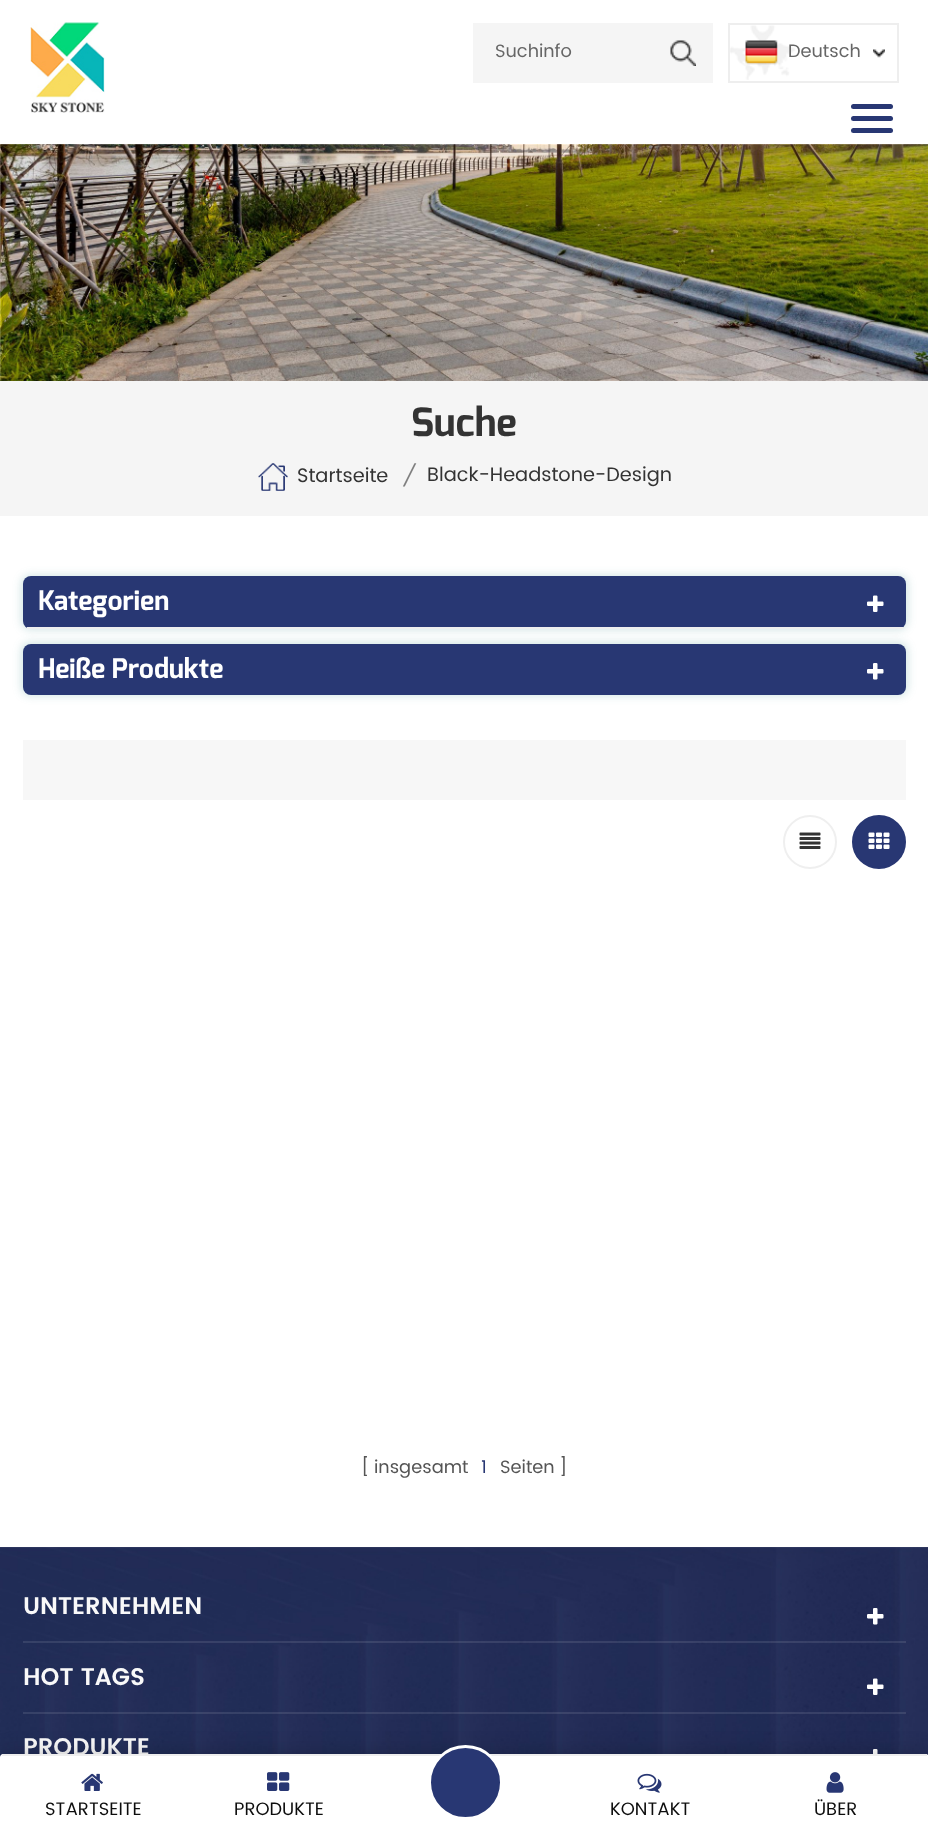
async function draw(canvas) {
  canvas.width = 928;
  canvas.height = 1834;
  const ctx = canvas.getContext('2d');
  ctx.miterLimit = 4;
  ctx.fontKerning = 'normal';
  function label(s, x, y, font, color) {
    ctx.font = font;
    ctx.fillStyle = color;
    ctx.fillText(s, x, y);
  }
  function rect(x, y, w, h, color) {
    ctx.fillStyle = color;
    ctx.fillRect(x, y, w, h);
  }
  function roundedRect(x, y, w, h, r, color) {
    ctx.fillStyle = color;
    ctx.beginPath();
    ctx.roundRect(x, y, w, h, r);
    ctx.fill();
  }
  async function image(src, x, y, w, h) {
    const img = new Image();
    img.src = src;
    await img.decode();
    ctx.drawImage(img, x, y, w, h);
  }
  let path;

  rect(0, 0, 928, 1834, '#fff');
  await image('assets/img1.png', 30, 22, 75, 91);
  rect(473, 23, 240, 60, '#f5f5f5');
  label('Suchinfo', 495, 57, '18px Poppins', '#666');
  await image('assets/img2.png', 670, 40, 26, 26);
  await image('assets/img3.png', 730, 25, 155, 55);
  ctx.strokeStyle = '#eee';
  ctx.lineWidth = 2;
  ctx.strokeRect(729, 24, 169, 58);
  await image('assets/img4.png', 745, 40, 33, 25);
  label('Deutsch', 788, 57, '18px Poppins', '#666');
  roundedRect(851, 116, 42, 5, 2.5, '#283773');
  roundedRect(851, 104, 42, 5, 2.5, '#283773');
  roundedRect(851, 128, 42, 5, 2.5, '#283773');
  await image('assets/img5.png', 0, 144, 928, 237);
  rect(0, 381, 928, 135, '#f5f5f5');
  label('Suche', 411, 436, 'bold 39px Exo', '#333');
  await image('assets/img6.png', 258, 463, 30, 28);
  label('Startseite', 297, 482, '19.5px Poppins', '#333');
  label('/', 402, 483, 'italic 21px Poppins', '#808080');
  label('Black-Headstone-Design', 427, 481, '19.5px Poppins', '#333');
  ctx.fillStyle = '#1c7f7b33';
  ctx.filter = 'blur(4px)';
  ctx.beginPath();
  ctx.roundRect(21, 575, 887, 55, 9);
  ctx.fill();
  ctx.filter = 'none';
  roundedRect(23, 576, 883, 53, 8, '#283773');
  rect(27, 627, 876, 2, '#eee');
  label('Kategorien', 38, 610, 'bold 27px Exo', '#fff');
  await image('assets/img7.png', 867, 595, 17, 17);
  ctx.fillStyle = '#1c7f7b33';
  ctx.filter = 'blur(4px)';
  ctx.beginPath();
  ctx.roundRect(21, 642, 887, 54, 9);
  ctx.fill();
  ctx.filter = 'none';
  roundedRect(23, 644, 883, 51, 8, '#283773');
  label('Heiße Produkte', 38, 678, 'bold 27px Exo', '#fff');
  await image('assets/img8.png', 867, 663, 17, 17);
  rect(23, 740, 883, 60, '#f7f7f7');
  ctx.beginPath();
  ctx.arc(810, 842, 26, 0, 2 * Math.PI);
  ctx.strokeStyle = '#efefef';
  ctx.stroke();
  await image('assets/img9.png', 799, 832, 22, 17);
  ctx.fillStyle = '#283773';
  ctx.beginPath();
  ctx.arc(879, 842, 26, 0, 2 * Math.PI);
  ctx.fill();
  ctx.strokeStyle = '#283773';
  ctx.stroke();
  await image('assets/img10.png', 868, 832, 22, 17);
  label('[', 361, 1473, '18px Poppins', '#555');
  label('insgesamt', 374, 1473, '18px Poppins', '#555');
  label('1', 481, 1473, '18px Poppins', '#283773');
  label('Seiten', 500, 1473, '18px Poppins', '#555');
  label(']', 559, 1473, '18px Poppins', '#555');
  await image('assets/img11.png', 0, 1547, 928, 210);
  rect(23, 1641, 883, 2, '#ffffff1a');
  label('UNTERNEHMEN', 23, 1614, '600 24px Poppins', '#f9f9f9');
  await image('assets/img12.png', 867, 1608, 17, 17);
  rect(23, 1712, 883, 2, '#ffffff1a');
  label('HOT TAGS', 23, 1685, '600 24px Poppins', '#f9f9f9');
  await image('assets/img13.png', 867, 1678, 17, 17);
  label('PRODUKTE', 23, 1755, '600 24px Poppins', '#f9f9f9');
  await image('assets/img14.png', 873, 1749, 5, 5);
  ctx.fillStyle = '#00000033';
  ctx.filter = 'blur(11px)';
  ctx.beginPath();
  ctx.roundRect(0, 1754, 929, 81, 3);
  ctx.fill();
  ctx.filter = 'none';
  ctx.fillStyle = '#fff';
  path = new Path2D('M3 1754H926C927.5 1754 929 1755.5 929 1757V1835H0V1757C0 1755.5 1.5 1754 3 1754Z');
  ctx.fill(path);
  rect(2, 1754, 925, 2, '#eee');
  ctx.fillStyle = '#283773';
  ctx.beginPath();
  ctx.arc(465.5, 1782.5, 36, 0, 2 * Math.PI);
  ctx.fill();
  ctx.strokeStyle = '#fff';
  ctx.lineWidth = 3;
  ctx.stroke();
  await image('assets/img15.png', 81, 1773, 22, 18);
  label('STARTSEITE', 45, 1815, '18px Poppins', '#0d0d0d');
  await image('assets/img16.png', 267, 1772, 23, 19);
  label('PRODUKTE', 234, 1815, '18px Poppins', '#0d0d0d');
  await image('assets/img17.png', 637, 1773, 25, 20);
  label('KONTAKT', 610, 1815, '18px Poppins', '#0d0d0d');
  await image('assets/img18.png', 826, 1772, 18, 21);
  label('ÜBER', 814, 1815, '18px Poppins', '#0d0d0d');
}

draw(document.querySelector('canvas'));
